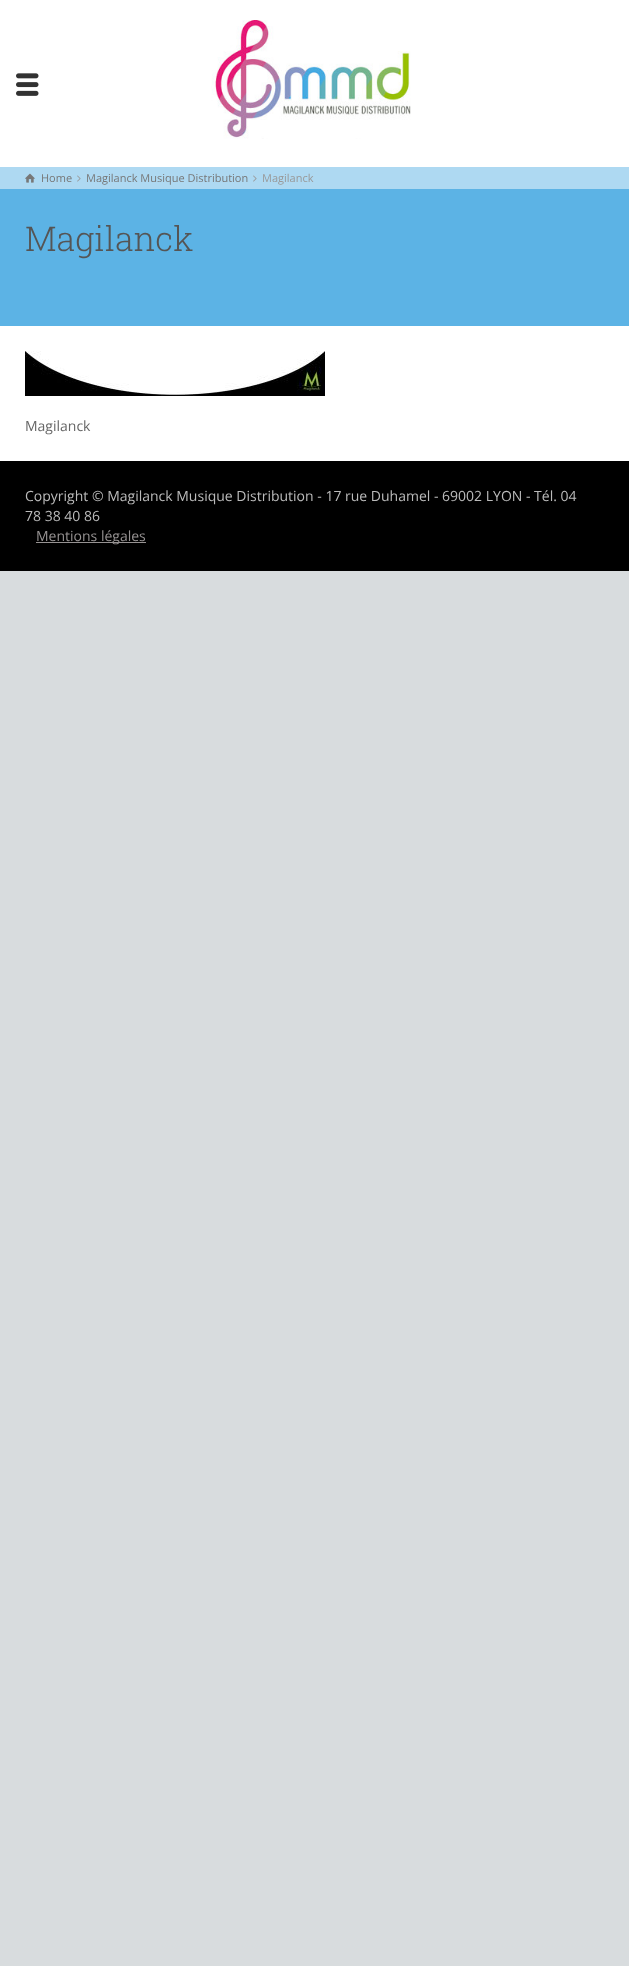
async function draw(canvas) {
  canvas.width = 629;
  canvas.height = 1966;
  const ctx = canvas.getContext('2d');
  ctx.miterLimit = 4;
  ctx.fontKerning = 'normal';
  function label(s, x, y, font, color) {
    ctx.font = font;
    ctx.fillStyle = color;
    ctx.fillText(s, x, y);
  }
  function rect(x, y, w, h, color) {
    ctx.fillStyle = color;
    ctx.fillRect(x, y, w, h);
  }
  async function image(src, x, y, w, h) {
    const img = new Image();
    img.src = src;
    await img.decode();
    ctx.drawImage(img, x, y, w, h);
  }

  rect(0, 0, 629, 1966, '#d8dcde');
  rect(0, 0, 629, 167, '#fff');
  await image('assets/img1.png', 16, 73, 23, 23);
  await image('assets/img2.png', 211, 20, 200, 119);
  rect(0, 189, 629, 137, '#5cb3e5');
  rect(0, 167, 629, 22, '#aed9f2');
  await image('assets/img3.png', 25, 173, 10, 10);
  label('Home', 41, 182, '11px Open Sans', '#777');
  await image('assets/img4.png', 77, 175, 4, 7);
  label('Magilanck Musique Distribution', 86, 182, '11px Open Sans', '#777');
  await image('assets/img4.png', 253, 175, 4, 7);
  label('Magilanck', 262, 182, '11px Open Sans', '#999');
  label('Magilanck', 25, 251, '300 34px Roboto Slab', '#555');
  rect(0, 326, 629, 135, '#fff');
  await image('assets/img5.png', 25, 351, 300, 45);
  label('Magilanck', 25, 431, '14px Open Sans', '#666');
  rect(0, 461, 629, 110, '#000');
  label('Copyright © Magilanck Musique Distribution - 17 rue Duhamel - 69002 LYON - Tél. 04', 25, 501, '14px Open Sans', '#bbb');
  label('78 38 40 86', 25, 521, '14px Open Sans', '#bbb');
  rect(36, 542, 110, 1, '#969292');
  label('Mentions légales', 36, 541, '14px Open Sans', '#969292');
}

draw(document.querySelector('canvas'));
